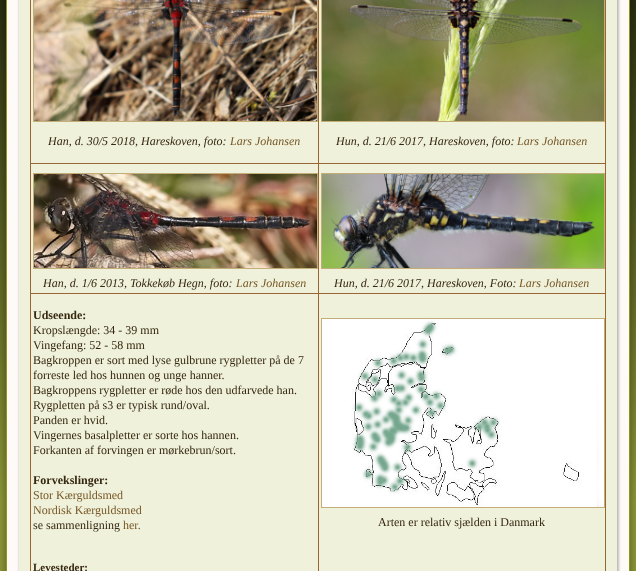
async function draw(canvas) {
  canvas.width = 636;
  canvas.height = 571;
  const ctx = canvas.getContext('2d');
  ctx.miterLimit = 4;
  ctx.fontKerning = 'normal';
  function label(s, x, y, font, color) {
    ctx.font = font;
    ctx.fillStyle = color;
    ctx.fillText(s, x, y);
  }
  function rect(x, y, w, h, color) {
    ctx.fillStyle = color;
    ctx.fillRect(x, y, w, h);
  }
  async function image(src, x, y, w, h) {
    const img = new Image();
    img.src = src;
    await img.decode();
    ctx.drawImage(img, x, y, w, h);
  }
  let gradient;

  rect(0, 0, 636, 571, '#fff');
  gradient = ctx.createLinearGradient(318, 0, 318, 571);
  gradient.addColorStop(0, '#2a2d10');
  gradient.addColorStop(0.88, '#8c9636');
  ctx.fillStyle = gradient;
  ctx.fillRect(0, 0, 636, 571);
  ctx.fillStyle = '#00000033';
  ctx.filter = 'blur(2.5px)';
  ctx.beginPath();
  ctx.roundRect(3, -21, 630, 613, 13);
  ctx.fill();
  ctx.filter = 'none';
  ctx.fillStyle = '#fdfaf7';
  ctx.beginPath();
  ctx.rect(6.5, -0.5, 623, 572);
  ctx.fill();
  ctx.strokeStyle = '#8f931f';
  ctx.stroke();
  ctx.fillStyle = '#00000040';
  ctx.filter = 'blur(1px)';
  ctx.beginPath();
  ctx.rect(19, -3, 600, 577);
  ctx.fill();
  ctx.filter = 'none';
  rect(19, 0, 598, 571, '#eff1da');
  ctx.strokeStyle = '#c3ae79';
  ctx.strokeRect(33.5, -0.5, 284, 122);
  await image('assets/img1.png', 34, 0, 283, 121);
  label('Han, d. 30/5 2018, Hareskoven, foto:', 48, 145, 'italic 12px Liberation Serif', '#362711');
  label('Lars Johansen', 230, 145, 'italic 12px Liberation Serif', '#775727');
  rect(318, 163, 288, 1, '#963');
  rect(318, 293, 288, 1, '#963');
  rect(318, 293, 1, 278, '#963');
  rect(30, 293, 289, 1, '#963');
  rect(318, 163, 1, 131, '#963');
  rect(30, 163, 289, 1, '#963');
  rect(318, 0, 1, 164, '#963');
  ctx.strokeRect(321.5, -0.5, 283, 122);
  await image('assets/img2.png', 322, 0, 282, 121);
  label('Hun, d. 21/6 2017, Hareskoven, foto:', 336, 145, 'italic 12px Liberation Serif', '#362711');
  label('Lars Johansen', 517, 145, 'italic 12px Liberation Serif', '#775727');
  rect(30, 293, 1, 278, '#963');
  rect(30, 0, 1, 294, '#963');
  ctx.strokeRect(33.5, 173.5, 284, 95);
  await image('assets/img3.png', 34, 174, 283, 94);
  label('Han, d. 1/6 2013, Tokkekøb Hegn, foto:', 43, 287, 'italic 12px Liberation Serif', '#362711');
  label('Lars Johansen', 236, 287, 'italic 12px Liberation Serif', '#775727');
  rect(605, 293, 1, 278, '#963');
  rect(605, 0, 1, 294, '#963');
  ctx.strokeRect(321.5, 173.5, 283, 95);
  await image('assets/img4.png', 322, 174, 282, 94);
  label('Hun, d. 21/6 2017, Hareskoven, Foto:', 334, 287, 'italic 12px Liberation Serif', '#362711');
  label('Lars Johansen', 519, 287, 'italic 12px Liberation Serif', '#775727');
  label('Udseende:', 33, 319, 'bold 12px Liberation Serif', '#362711');
  label('Kropslængde: 34 - 39 mm', 33, 334, '12px Liberation Serif', '#362711');
  label('Vingefang: 52 - 58 mm', 33, 349, '12px Liberation Serif', '#362711');
  label('Bagkroppen er sort med lyse gulbrune rygpletter på de 7', 33, 364, '12px Liberation Serif', '#362711');
  label('forreste led hos hunnen og unge hanner.', 33, 379, '12px Liberation Serif', '#362711');
  label('Bagkroppens rygpletter er røde hos den udfarvede han.', 33, 394, '12px Liberation Serif', '#362711');
  label('Rygpletten på s3 er typisk rund/oval.', 33, 409, '12px Liberation Serif', '#362711');
  label('Panden er hvid.', 33, 424, '12px Liberation Serif', '#362711');
  label('Vingernes basalpletter er sorte hos hannen.', 33, 439, '12px Liberation Serif', '#362711');
  label('Forkanten af forvingen er mørkebrun/sort.', 33, 454, '12px Liberation Serif', '#362711');
  label('Forvekslinger:', 33, 484, 'bold 12px Liberation Serif', '#362711');
  label('Stor Kærguldsmed', 33, 499, '12px Liberation Serif', '#775727');
  label('Nordisk Kærguldsmed', 33, 514, '12px Liberation Serif', '#775727');
  label('se sammenligning', 33, 529, '12px Liberation Serif', '#362711');
  label('her.', 123, 529, '12px Liberation Serif', '#775727');
  label('Levesteder:', 33, 571, 'bold 11px Liberation Serif', '#362711');
  ctx.strokeRect(321.5, 318.5, 283, 189);
  await image('assets/img5.png', 322, 319, 282, 188);
  label('Arten er relativ sjælden i Danmark', 378, 526, '12px Liberation Serif', '#362711');
}

draw(document.querySelector('canvas'));
